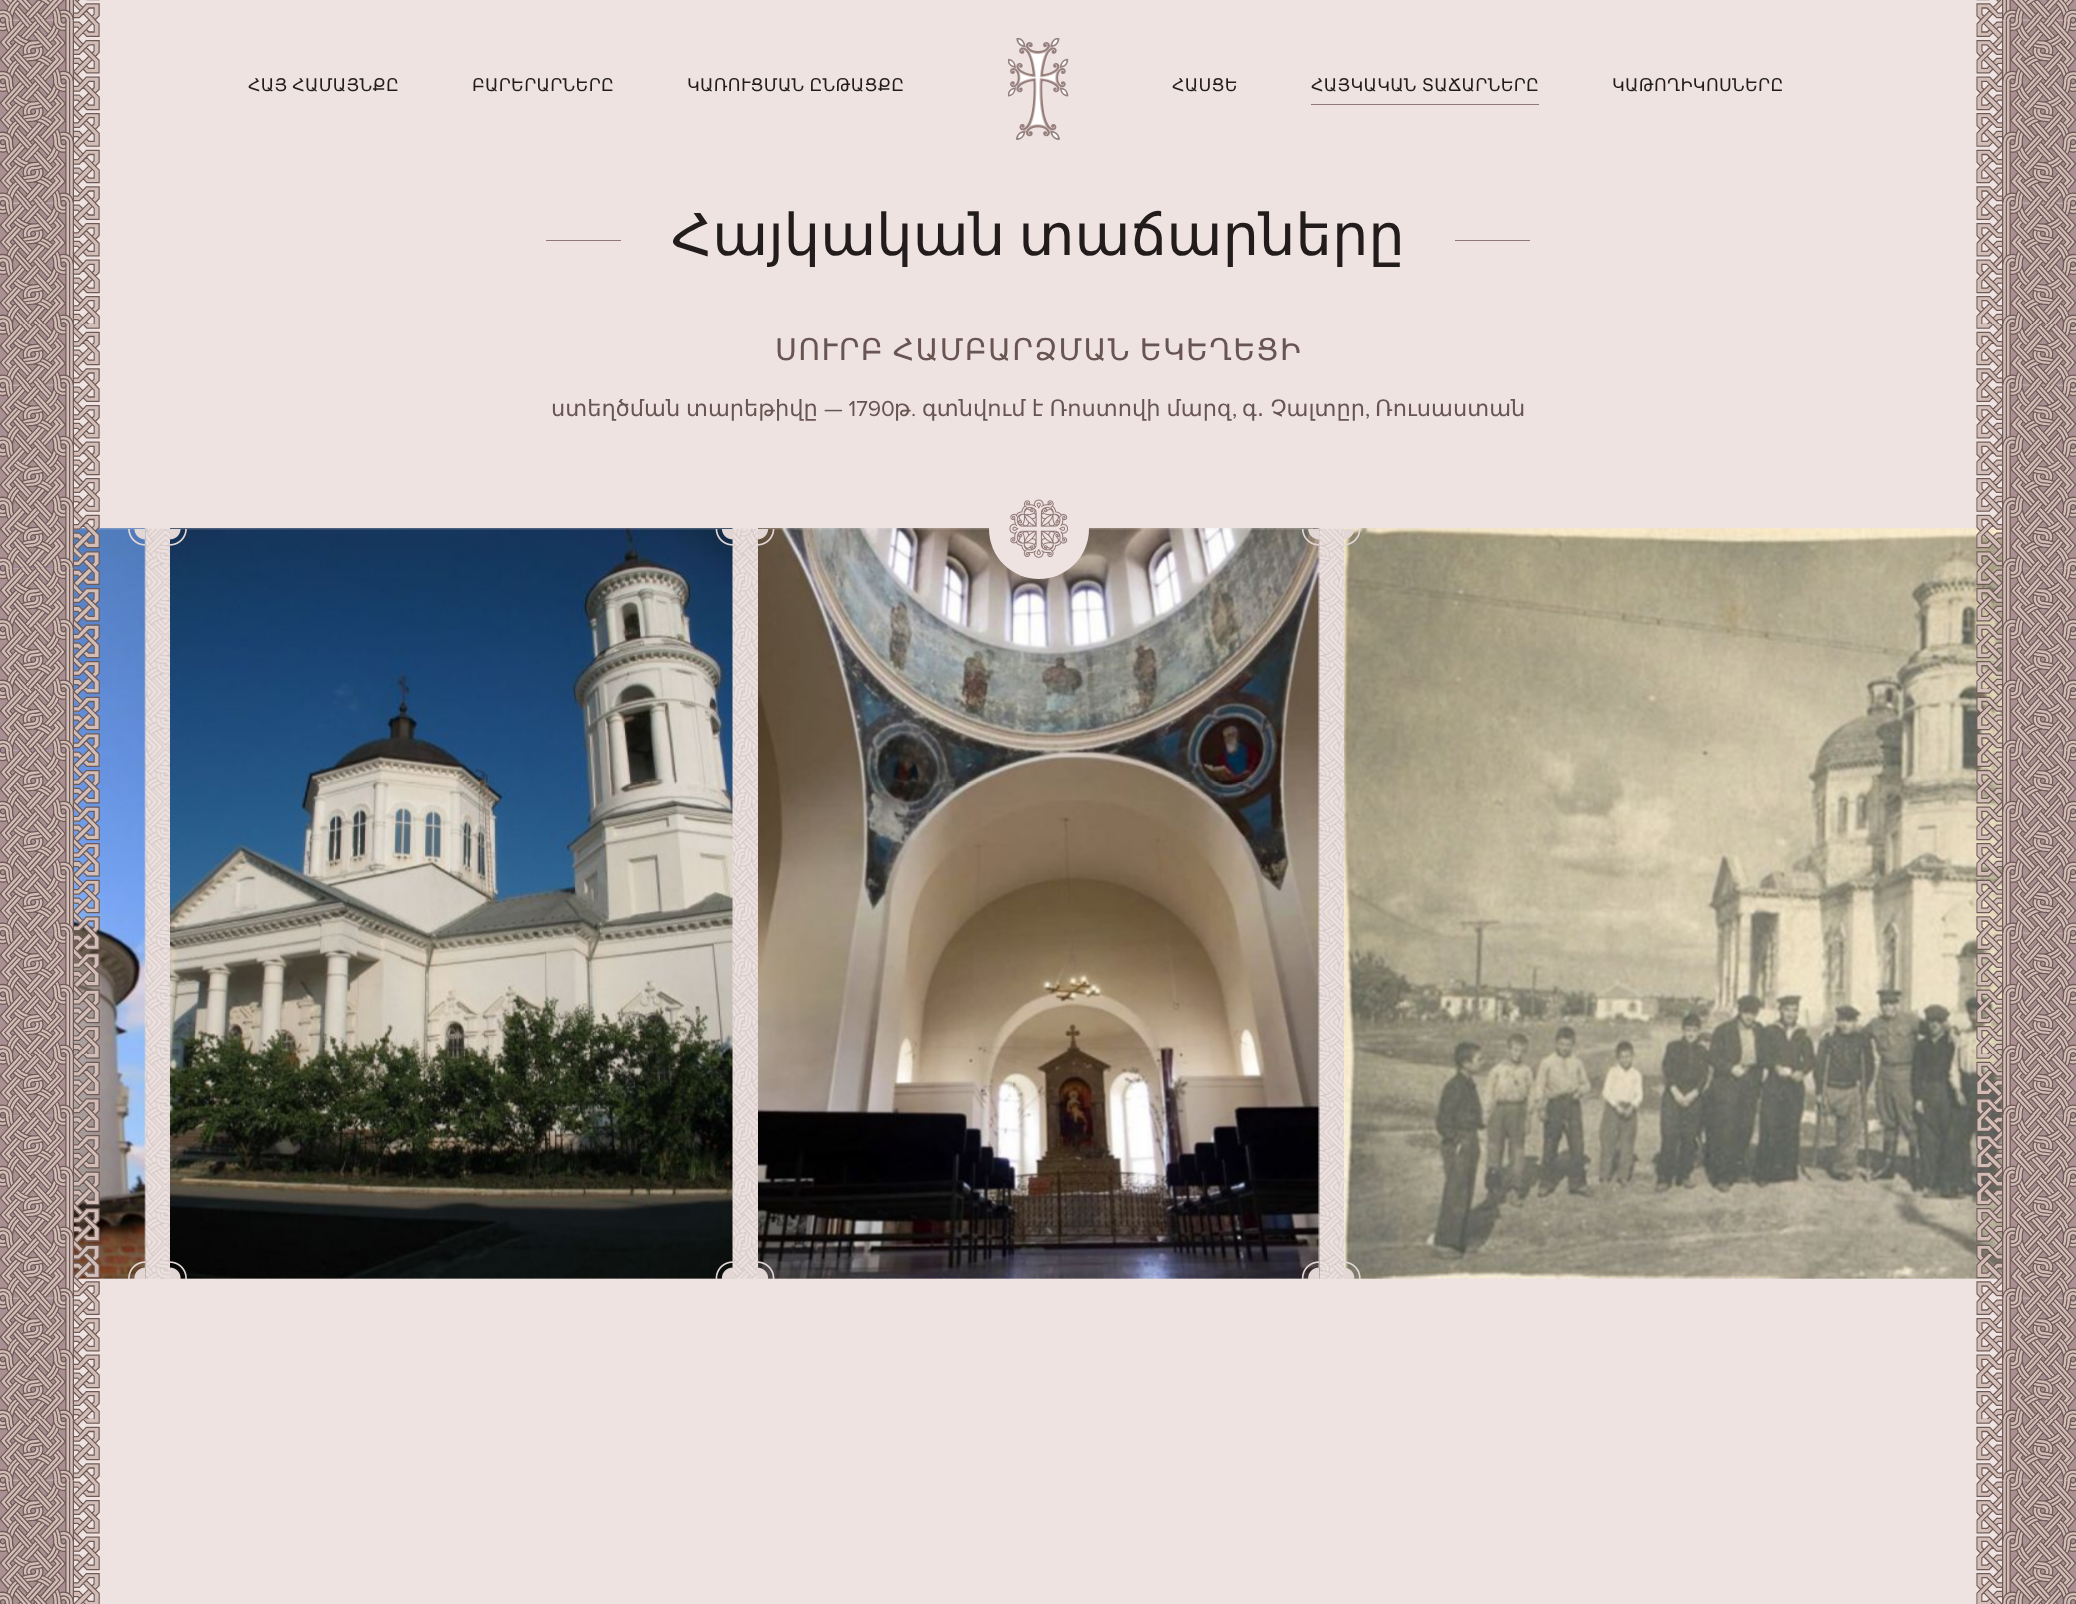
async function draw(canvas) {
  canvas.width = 2076;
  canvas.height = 1604;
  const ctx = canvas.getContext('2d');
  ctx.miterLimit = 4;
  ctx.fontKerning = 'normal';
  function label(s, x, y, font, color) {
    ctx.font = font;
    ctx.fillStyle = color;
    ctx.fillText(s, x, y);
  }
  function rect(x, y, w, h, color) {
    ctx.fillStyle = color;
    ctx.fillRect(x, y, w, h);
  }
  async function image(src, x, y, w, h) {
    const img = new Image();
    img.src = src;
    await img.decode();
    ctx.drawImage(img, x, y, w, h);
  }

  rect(0, 0, 2076, 1604, '#eee3e0');
  ctx.letterSpacing = '0.25px';
  ctx.wordSpacing = '-1px';
  label('ՀԱՅ ՀԱՄԱՅՆՔԸ', 248, 91, '17.5px DejaVu Sans', '#221d1c');
  ctx.wordSpacing = '0px';
  label('ԲԱՐԵՐԱՐՆԵՐԸ', 472, 91, '17.5px DejaVu Sans', '#221d1c');
  ctx.wordSpacing = '-1px';
  label('ԿԱՌՈՒՑՄԱՆ ԸՆԹԱՑՔԸ', 687, 91, '17.5px DejaVu Sans', '#221d1c');
  ctx.wordSpacing = '0px';
  label('ՀԱՍՑԵ', 1172, 91, '17.5px DejaVu Sans', '#221d1c');
  ctx.wordSpacing = '-1px';
  label('ՀԱՅԿԱԿԱՆ ՏԱՃԱՐՆԵՐԸ', 1311, 91, '17.5px DejaVu Sans', '#221d1c');
  rect(1311, 104, 228, 1, '#8f7875');
  ctx.wordSpacing = '0px';
  label('ԿԱԹՈՂԻԿՈՍՆԵՐԸ', 1612, 91, '17.5px DejaVu Sans', '#221d1c');
  await image('assets/img5.png', 74, 528, 1928, 751);
  await image('assets/img6.png', 1, 528, 145, 751);
  await image('assets/img1.png', 0, 0, 100, 1604);
  await image('assets/img2.png', 1008, 38, 61, 102);
  await image('assets/img19.png', 1344, 528, 731, 751);
  await image('assets/img3.png', 1976, 0, 100, 1604);
  rect(546, 240, 75, 1, '#8f7875');
  ctx.letterSpacing = '0px';
  ctx.wordSpacing = '-5px';
  label('Հայկական տաճարները', 671, 255, '57.5px DejaVu Sans', '#221d1c');
  rect(1455, 240, 75, 1, '#8f7875');
  ctx.letterSpacing = '1.25px';
  ctx.wordSpacing = '-2px';
  label('ՍՈՒՐԲ ՀԱՄԲԱՐՁՄԱՆ ԵԿԵՂԵՑԻ', 775, 360, '30px DejaVu Sans', '#685552');
  ctx.letterSpacing = '0px';
  ctx.wordSpacing = '0px';
  label('ստեղծման', 551, 416, '22.5px DejaVu Sans', '#685552');
  label('տարեթիվը', 686, 416, '22.5px DejaVu Sans', '#685552');
  label('— 1790', 824, 416, '22.5px Proxima Nova', '#685552');
  label('թ', 894, 416, '22.5px DejaVu Sans', '#685552');
  label('.', 911, 416, '22.5px Proxima Nova', '#685552');
  ctx.wordSpacing = '-1px';
  label('գտնվում է Ռոստովի մարզ', 922, 416, '22.5px DejaVu Sans', '#685552');
  ctx.wordSpacing = '0px';
  label(',', 1232, 416, '22.5px Proxima Nova', '#685552');
  ctx.wordSpacing = '-1px';
  label('գ․ Չալտըր', 1242, 416, '22.5px DejaVu Sans', '#685552');
  ctx.wordSpacing = '0px';
  label(',', 1365, 416, '22.5px Proxima Nova', '#685552');
  label('Ռուսաստան', 1375, 416, '22.5px DejaVu Sans', '#685552');
  await image('assets/img14.png', 758, 528, 562, 751);
  ctx.fillStyle = '#eee3e0';
  ctx.beginPath();
  ctx.arc(1039, 529, 50, 0, 2 * Math.PI);
  ctx.fill();
  await image('assets/img4.png', 1009, 499, 59, 59);
  await image('assets/img7.png', 128, 529, 17, 17);
  await image('assets/img8.png', 128, 1261, 17, 18);
  await image('assets/img9.png', 170, 528, 563, 751);
  await image('assets/img10.png', 170, 529, 17, 17);
  await image('assets/img11.png', 715, 529, 18, 17);
  await image('assets/img12.png', 170, 1261, 17, 18);
  await image('assets/img13.png', 715, 1261, 18, 18);
  await image('assets/img15.png', 758, 529, 17, 17);
  await image('assets/img16.png', 1301, 529, 18, 17);
  await image('assets/img17.png', 758, 1261, 17, 18);
  await image('assets/img18.png', 1301, 1261, 18, 18);
  await image('assets/img20.png', 1344, 529, 17, 17);
  await image('assets/img21.png', 1344, 1261, 17, 18);
}

draw(document.querySelector('canvas'));
